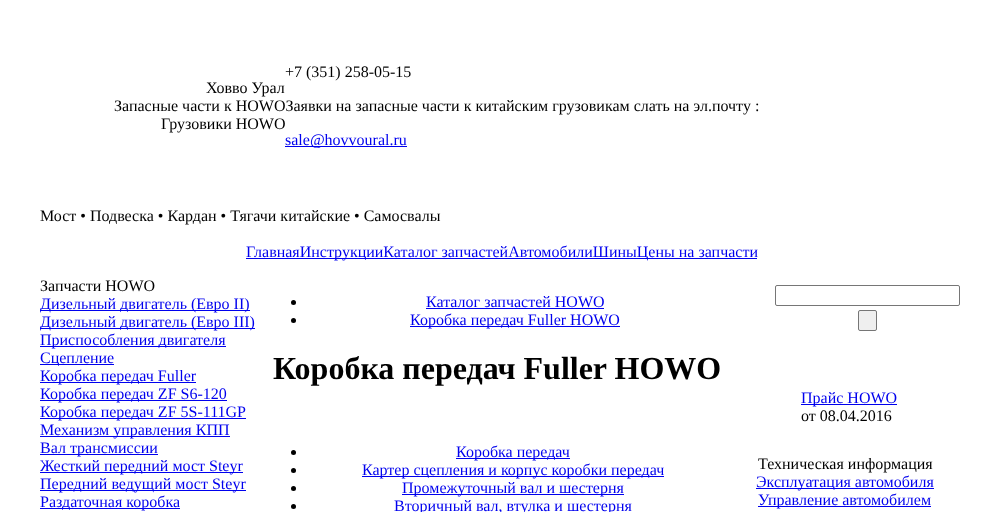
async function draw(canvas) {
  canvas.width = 1003;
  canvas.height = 512;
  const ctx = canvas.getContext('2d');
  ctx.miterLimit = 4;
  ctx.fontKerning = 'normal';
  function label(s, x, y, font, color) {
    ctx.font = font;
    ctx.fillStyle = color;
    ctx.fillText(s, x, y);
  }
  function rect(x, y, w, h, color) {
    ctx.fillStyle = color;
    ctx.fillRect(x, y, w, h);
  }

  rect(0, 0, 1003, 512, '#fff');
  label('+7 (351) 258-05-15', 285, 77, '16px Liberation Serif', '#000');
  rect(285, 146, 122, 1, '#00e');
  label('sale@hovvoural.ru', 285, 145, '16px Liberation Serif', '#00e');
  label('Ховво Урал', 206, 93, '16px Liberation Serif', '#000');
  label('Запасные части к HOWOЗаявки на запасные части к китайским грузовикам слать на эл.почту :', 114, 111, '16px Liberation Serif', '#000');
  label('Грузовики HOWO', 161, 129, '16px Liberation Serif', '#000');
  label('Мост • Подвеска • Кардан • Тягачи китайские • Самосвалы', 40, 221, '16px Liberation Serif', '#000');
  rect(246, 258, 511, 1, '#00e');
  label('ГлавнаяИнструкцииКаталог запчастейАвтомобилиШиныЦены на запчасти', 246, 257, '16px Liberation Serif', '#00e');
  label('Запчасти HOWO', 40, 291, '16px Liberation Serif', '#000');
  rect(40, 310, 210, 1, '#00e');
  label('Дизельный двигатель (Евро II)', 40, 309, '16px Liberation Serif', '#00e');
  rect(40, 328, 215, 1, '#00e');
  label('Дизельный двигатель (Евро III)', 40, 327, '16px Liberation Serif', '#00e');
  rect(40, 346, 186, 1, '#00e');
  label('Приспособления двигателя', 40, 345, '16px Liberation Serif', '#00e');
  rect(40, 364, 74, 1, '#00e');
  label('Сцепление', 40, 363, '16px Liberation Serif', '#00e');
  rect(40, 382, 156, 1, '#00e');
  label('Коробка передач Fuller', 40, 381, '16px Liberation Serif', '#00e');
  rect(40, 400, 187, 1, '#00e');
  label('Коробка передач ZF S6-120', 40, 399, '16px Liberation Serif', '#00e');
  rect(40, 418, 206, 1, '#00e');
  label('Коробка передач ZF 5S-111GP', 40, 417, '16px Liberation Serif', '#00e');
  rect(40, 436, 190, 1, '#00e');
  label('Механизм управления КПП', 40, 435, '16px Liberation Serif', '#00e');
  rect(40, 454, 118, 1, '#00e');
  label('Вал трансмиссии', 40, 453, '16px Liberation Serif', '#00e');
  rect(40, 472, 203, 1, '#00e');
  label('Жесткий передний мост Steyr', 40, 471, '16px Liberation Serif', '#00e');
  rect(40, 490, 206, 1, '#00e');
  label('Передний ведущий мост Steyr', 40, 489, '16px Liberation Serif', '#00e');
  rect(40, 508, 140, 1, '#00e');
  label('Раздаточная коробка', 40, 507, '16px Liberation Serif', '#00e');
  ctx.fillStyle = '#000';
  ctx.beginPath();
  ctx.arc(293.5, 302.5, 2.5, 0, 2 * Math.PI);
  ctx.fill();
  label('Каталог запчастей HOWO', 426, 307, '16px Liberation Serif', '#00e');
  rect(426, 308, 178, 1, '#00e');
  ctx.fillStyle = '#000';
  ctx.beginPath();
  ctx.arc(293.5, 320.5, 2.5, 0, 2 * Math.PI);
  ctx.fill();
  rect(410, 326, 210, 1, '#00e');
  label('Коробка передач Fuller HOWO', 410, 325, '16px Liberation Serif', '#00e');
  label('Коробка передач Fuller HOWO', 273, 379, 'bold 32px Liberation Serif', '#000');
  ctx.beginPath();
  ctx.arc(293.5, 452.5, 2.5, 0, 2 * Math.PI);
  ctx.fill();
  rect(456, 458, 114, 1, '#00e');
  label('Коробка передач', 456, 457, '16px Liberation Serif', '#00e');
  ctx.fillStyle = '#000';
  ctx.beginPath();
  ctx.arc(293.5, 470.5, 2.5, 0, 2 * Math.PI);
  ctx.fill();
  rect(362, 476, 302, 1, '#00e');
  label('Картер сцепления и корпус коробки передач', 362, 475, '16px Liberation Serif', '#00e');
  ctx.fillStyle = '#000';
  ctx.beginPath();
  ctx.arc(293.5, 488.5, 2.5, 0, 2 * Math.PI);
  ctx.fill();
  rect(402, 494, 222, 1, '#00e');
  label('Промежуточный вал и шестерня', 402, 493, '16px Liberation Serif', '#00e');
  ctx.fillStyle = '#000';
  ctx.beginPath();
  ctx.arc(293.5, 506.5, 2.5, 0, 2 * Math.PI);
  ctx.fill();
  label('Вторичный вал, втулка и шестерня', 394, 511, '16px Liberation Serif', '#00e');
  ctx.beginPath();
  ctx.roundRect(775.5, 285.5, 184, 20, 1.5);
  ctx.strokeStyle = '#767676';
  ctx.stroke();
  ctx.fillStyle = '#efefef';
  ctx.beginPath();
  ctx.roundRect(858.5, 310.5, 18, 20, 1.5);
  ctx.fill();
  ctx.stroke();
  rect(801, 404, 96, 1, '#00e');
  label('Прайс HOWO', 801, 403, '16px Liberation Serif', '#00e');
  label('от 08.04.2016', 801, 421, '16px Liberation Serif', '#000');
  label('Техническая информация', 758, 469, '16px Liberation Serif', '#000');
  rect(756, 488, 178, 1, '#00e');
  label('Эксплуатация автомобиля', 756, 487, '16px Liberation Serif', '#00e');
  rect(758, 506, 173, 1, '#00e');
  label('Управление автомобилем', 758, 505, '16px Liberation Serif', '#00e');
}

draw(document.querySelector('canvas'));
